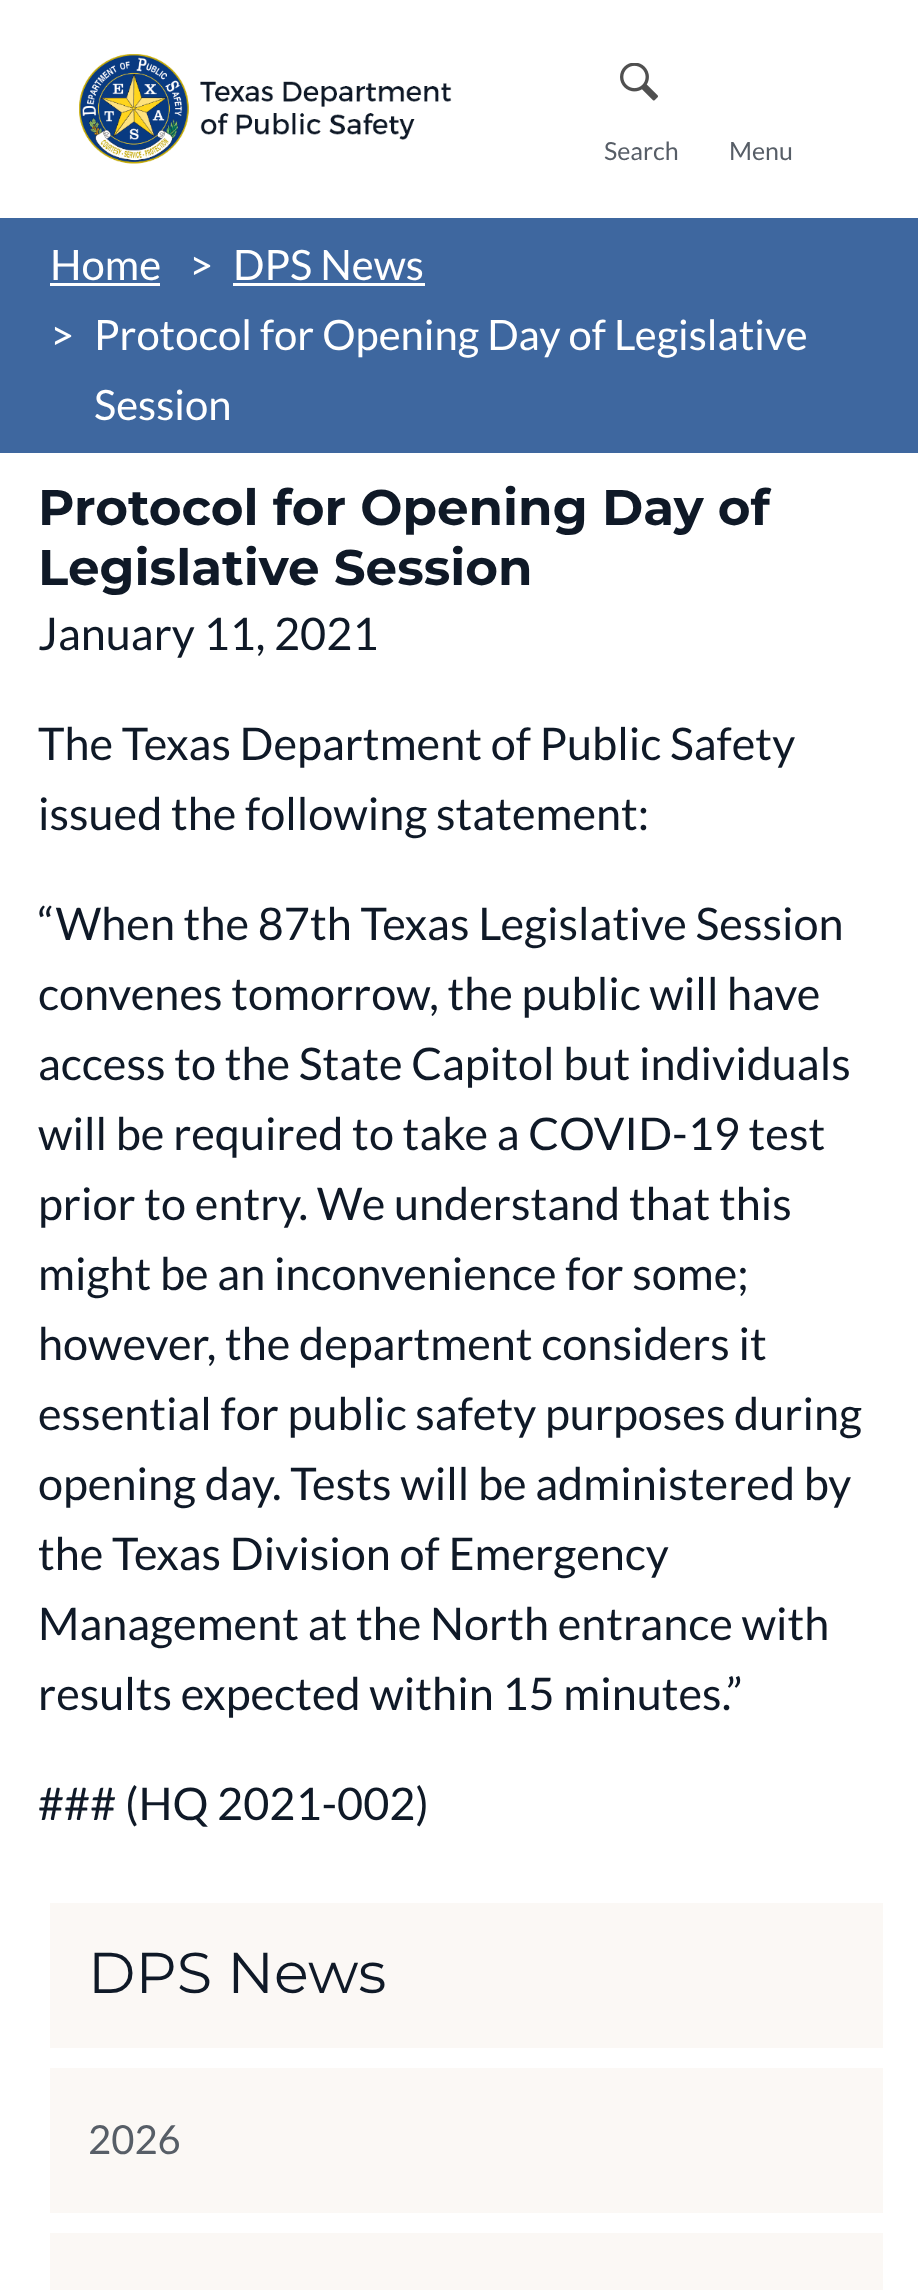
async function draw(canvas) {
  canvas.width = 918;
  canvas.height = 2290;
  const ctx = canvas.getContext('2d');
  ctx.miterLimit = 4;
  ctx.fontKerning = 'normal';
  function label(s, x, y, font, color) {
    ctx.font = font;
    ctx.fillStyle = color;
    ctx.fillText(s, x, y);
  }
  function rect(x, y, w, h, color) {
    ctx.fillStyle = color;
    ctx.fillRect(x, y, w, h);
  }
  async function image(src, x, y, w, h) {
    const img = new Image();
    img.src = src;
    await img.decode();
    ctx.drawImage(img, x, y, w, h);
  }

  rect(0, 0, 918, 2290, '#fff');
  await image('assets/img1.png', 79, 54, 373, 110);
  await image('assets/img2.png', 620, 63, 38, 38);
  label('Search', 604, 160, '25px Lato', '#575e67');
  label('Menu', 729, 160, '25px Lato', '#575e67');
  rect(0, 218, 918, 235, '#3e679f');
  label('Home', 50, 280, '41.8px Lato', '#fff');
  rect(50, 283, 110, 3, '#fff');
  label('>', 189, 280, '41.8px Lato', '#fff');
  label('DPS News', 233, 280, '41.8px Lato', '#fff');
  rect(233, 283, 192, 3, '#fff');
  label('>', 50, 350, '41.8px Lato', '#fff');
  label('Protocol for Opening Day of Legislative', 94, 350, '41.8px Lato', '#fff');
  label('Session', 94, 420, '41.8px Lato', '#fff');
  label('Protocol for Opening Day of', 38, 525, 'bold 50px Montserrat', '#0f1927');
  label('Legislative Session', 38, 585, 'bold 50px Montserrat', '#0f1927');
  label('January 11, 2021', 38, 650, '45px Lato', '#0f1927');
  label('The Texas Department of Public Safety', 38, 760, '45px Lato', '#0f1927');
  label('issued the following statement:', 38, 830, '45px Lato', '#0f1927');
  label('“When the 87th Texas Legislative Session', 38, 940, '45px Lato', '#0f1927');
  label('convenes tomorrow, the public will have', 38, 1010, '45px Lato', '#0f1927');
  label('access to the State Capitol but individuals', 38, 1080, '45px Lato', '#0f1927');
  label('will be required to take a COVID-19 test', 38, 1150, '45px Lato', '#0f1927');
  label('prior to entry. We understand that this', 38, 1220, '45px Lato', '#0f1927');
  label('might be an inconvenience for some;', 38, 1290, '45px Lato', '#0f1927');
  label('however, the department considers it', 38, 1360, '45px Lato', '#0f1927');
  label('essential for public safety purposes during', 38, 1430, '45px Lato', '#0f1927');
  label('opening day. Tests will be administered by', 38, 1500, '45px Lato', '#0f1927');
  label('the Texas Division of Emergency', 38, 1570, '45px Lato', '#0f1927');
  label('Management at the North entrance with', 38, 1640, '45px Lato', '#0f1927');
  label('results expected within 15 minutes.”', 38, 1710, '45px Lato', '#0f1927');
  label('### (HQ 2021-002)', 38, 1820, '45px Lato', '#0f1927');
  rect(50, 1903, 833, 145, '#fbf8f5');
  label('DPS News', 88, 1993, '57.5px Montserrat', '#0f1927');
  rect(50, 2068, 833, 145, '#fbf8f5');
  label('2026', 88, 2154, '40px Lato', '#575e67');
  rect(50, 2233, 833, 57, '#fbf8f5');
}

draw(document.querySelector('canvas'));
